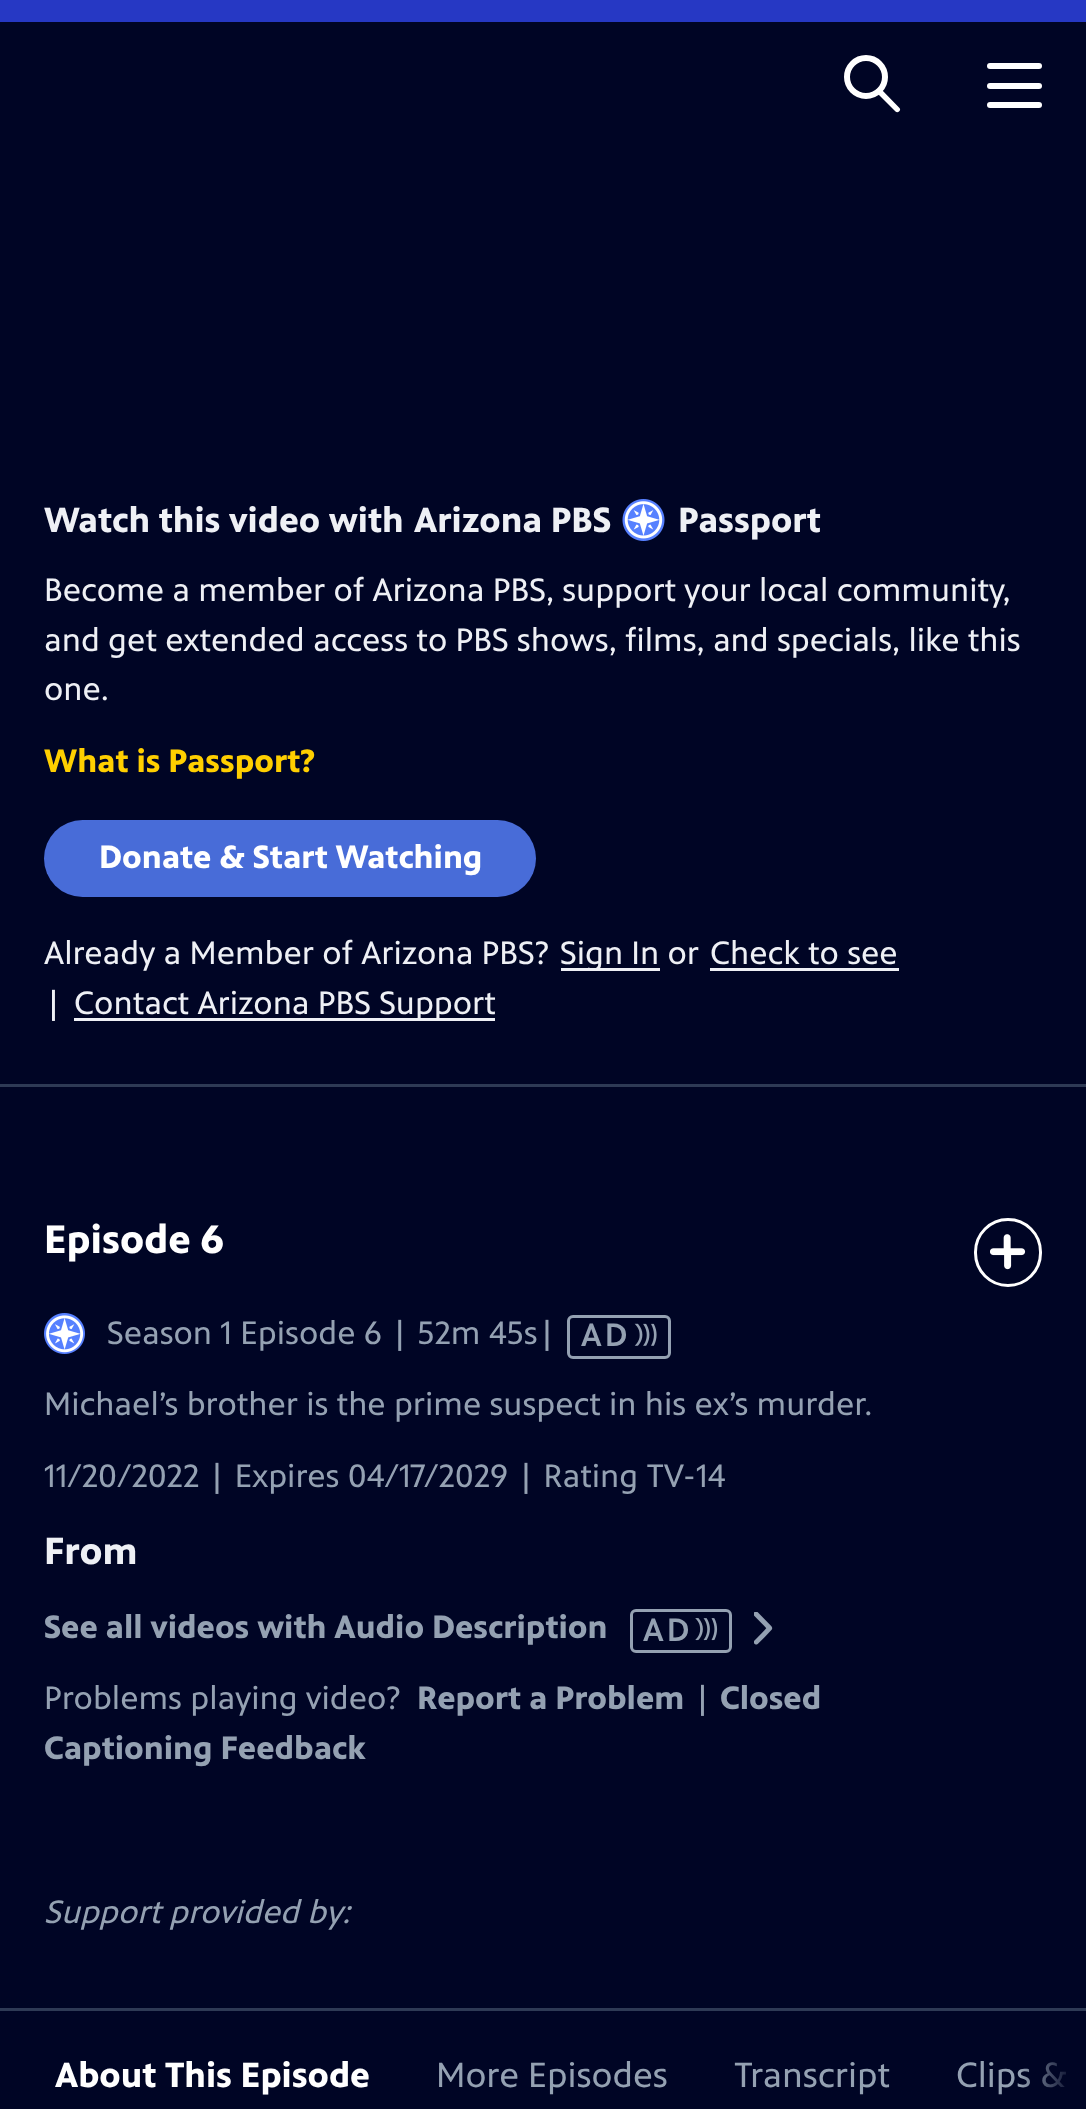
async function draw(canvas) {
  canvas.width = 1086;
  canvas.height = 2109;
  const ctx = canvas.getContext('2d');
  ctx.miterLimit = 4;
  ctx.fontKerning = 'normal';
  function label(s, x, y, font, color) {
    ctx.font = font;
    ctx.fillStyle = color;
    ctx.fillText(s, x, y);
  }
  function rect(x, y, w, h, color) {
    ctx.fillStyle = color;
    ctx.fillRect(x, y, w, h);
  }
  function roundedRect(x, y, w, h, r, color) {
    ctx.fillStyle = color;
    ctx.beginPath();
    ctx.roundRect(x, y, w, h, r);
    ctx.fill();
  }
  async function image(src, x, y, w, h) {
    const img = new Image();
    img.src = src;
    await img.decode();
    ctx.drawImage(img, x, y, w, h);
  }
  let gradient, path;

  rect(0, 0, 1086, 2109, '#000525');
  rect(0, 0, 1086, 22, '#2638c4');
  ctx.beginPath();
  ctx.arc(866, 77, 19, 0, 2 * Math.PI);
  ctx.strokeStyle = '#fff';
  ctx.lineWidth = 6;
  ctx.stroke();
  ctx.fillStyle = '#fff';
  path = new Path2D('M895.5 111.5L877 93C876 92 876 90.5 877 89C878 88 880 88 881 89L899 107.5C900.5 108.5 900.5 110.5 899 111.5C898 112.5 896.5 112.5 895.5 111.5Z');
  ctx.fill(path);
  roundedRect(987, 63, 55, 6, 3, '#fff');
  roundedRect(987, 83, 55, 6, 3, '#fff');
  roundedRect(987, 102, 55, 6, 3, '#fff');
  rect(0, 1084, 1086, 3, '#2e3a55');
  label('Watch this video with', 44, 532, 'bold 35.75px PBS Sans', '#eef0f5');
  label('Arizona PBS', 414, 532, 'bold 35.75px PBS Sans', '#eef0f5');
  await image('assets/img1.png', 622, 499, 43, 42);
  label('Passport', 678, 532, 'bold 35.75px PBS Sans', '#eef0f5');
  label('Become a member of Arizona PBS, support your local community,', 44, 601, '33px PBS Sans', '#eef0f5');
  label('and get extended access to PBS shows, films, and specials, like this', 44, 651, '33px PBS Sans', '#eef0f5');
  label('one.', 44, 700, '33px PBS Sans', '#eef0f5');
  label('What is Passport?', 44, 772, 'bold 33px PBS Sans', '#ffcf00');
  roundedRect(44, 820, 492, 77, 38.5, '#486cd8');
  label('Donate & Start Watching', 99, 868, 'bold 33px PBS Sans', '#fff');
  label('Already a Member of Arizona PBS?', 44, 964, '33px PBS Sans', '#eef0f5');
  rect(561, 968, 99, 3, '#eef0f5');
  label('Sign In or', 560, 964, '33px PBS Sans', '#eef0f5');
  label('Check to see', 710, 964, '33px PBS Sans', '#eef0f5');
  rect(710, 968, 189, 3, '#eef0f5');
  label('|', 44, 1014, '33px PBS Sans', '#eef0f5');
  rect(74, 1018, 421, 3, '#eef0f5');
  label('Contact Arizona PBS Support', 74, 1014, '33px PBS Sans', '#eef0f5');
  label('Episode 6', 44, 1253, 'bold 40.5px PBS Sans', '#fff');
  ctx.beginPath();
  ctx.roundRect(975.5, 1219.5, 65, 66, 32.5);
  ctx.lineWidth = 3;
  ctx.stroke();
  await image('assets/img2.png', 990, 1234, 36, 36);
  await image('assets/img3.png', 44, 1313, 41, 41);
  label('Season 1 Episode 6 | 52m 45s|', 107, 1344, '33px PBS Sans', '#94a1b2');
  ctx.beginPath();
  ctx.roundRect(568.5, 1316.5, 101, 41, 4.5);
  ctx.strokeStyle = '#94a1b2';
  ctx.stroke();
  ctx.letterSpacing = '3px';
  label('AD', 581, 1346, '500 33px PBS Sans', '#94a1b2');
  await image('assets/img4.png', 634, 1323, 23, 23);
  ctx.letterSpacing = '0px';
  label('Michael’s brother is the prime suspect in his ex’s murder.', 44, 1415, '33px PBS Sans', '#94a1b2');
  label('11/20/2022 | Expires 04/17/2029 | Rating TV-14', 44, 1487, '33px PBS Sans', '#94a1b2');
  label('From', 44, 1564, 'bold 38.5px PBS Sans', '#eef0f5');
  label('See all videos with Audio Description', 44, 1638, 'bold 33px PBS Sans', '#94a1b2');
  ctx.beginPath();
  ctx.roundRect(631.5, 1610.5, 99, 41, 4.5);
  ctx.stroke();
  ctx.letterSpacing = '3px';
  label('AD', 643, 1641, '500 33px PBS Sans', '#94a1b2');
  await image('assets/img5.png', 695, 1618, 23, 23);
  await image('assets/img6.png', 754, 1612, 19, 33);
  ctx.letterSpacing = '0px';
  label('Problems playing video?', 44, 1709, '33px PBS Sans', '#94a1b2');
  label('Report a Problem', 417, 1709, 'bold 33px PBS Sans', '#94a1b2');
  label('|', 693, 1709, '33px PBS Sans', '#94a1b2');
  label('Closed', 720, 1709, 'bold 33px PBS Sans', '#94a1b2');
  label('Captioning Feedback', 44, 1759, 'bold 33px PBS Sans', '#94a1b2');
  label('Support provided by:', 44, 1923, 'italic 33px PBS Sans', '#94a1b2');
  rect(0, 2008, 1086, 3, '#2e3a55');
  label('About This Episode', 55, 2087, 'bold 35.75px PBS Sans', '#fff');
  label('More Episodes', 436, 2087, '35.75px PBS Sans', '#94a1b2');
  label('Transcript', 734, 2087, '35.75px PBS Sans', '#94a1b2');
  label('Clips &', 956, 2087, '35.75px PBS Sans', '#94a1b2');
  gradient = ctx.createLinearGradient(1020, 2101, 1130, 2101);
  gradient.addColorStop(0, '#00052500');
  gradient.addColorStop(0.5, '#000525');
  ctx.fillStyle = gradient;
  ctx.fillRect(1021, 2062, 45, 26);
}

draw(document.querySelector('canvas'));
